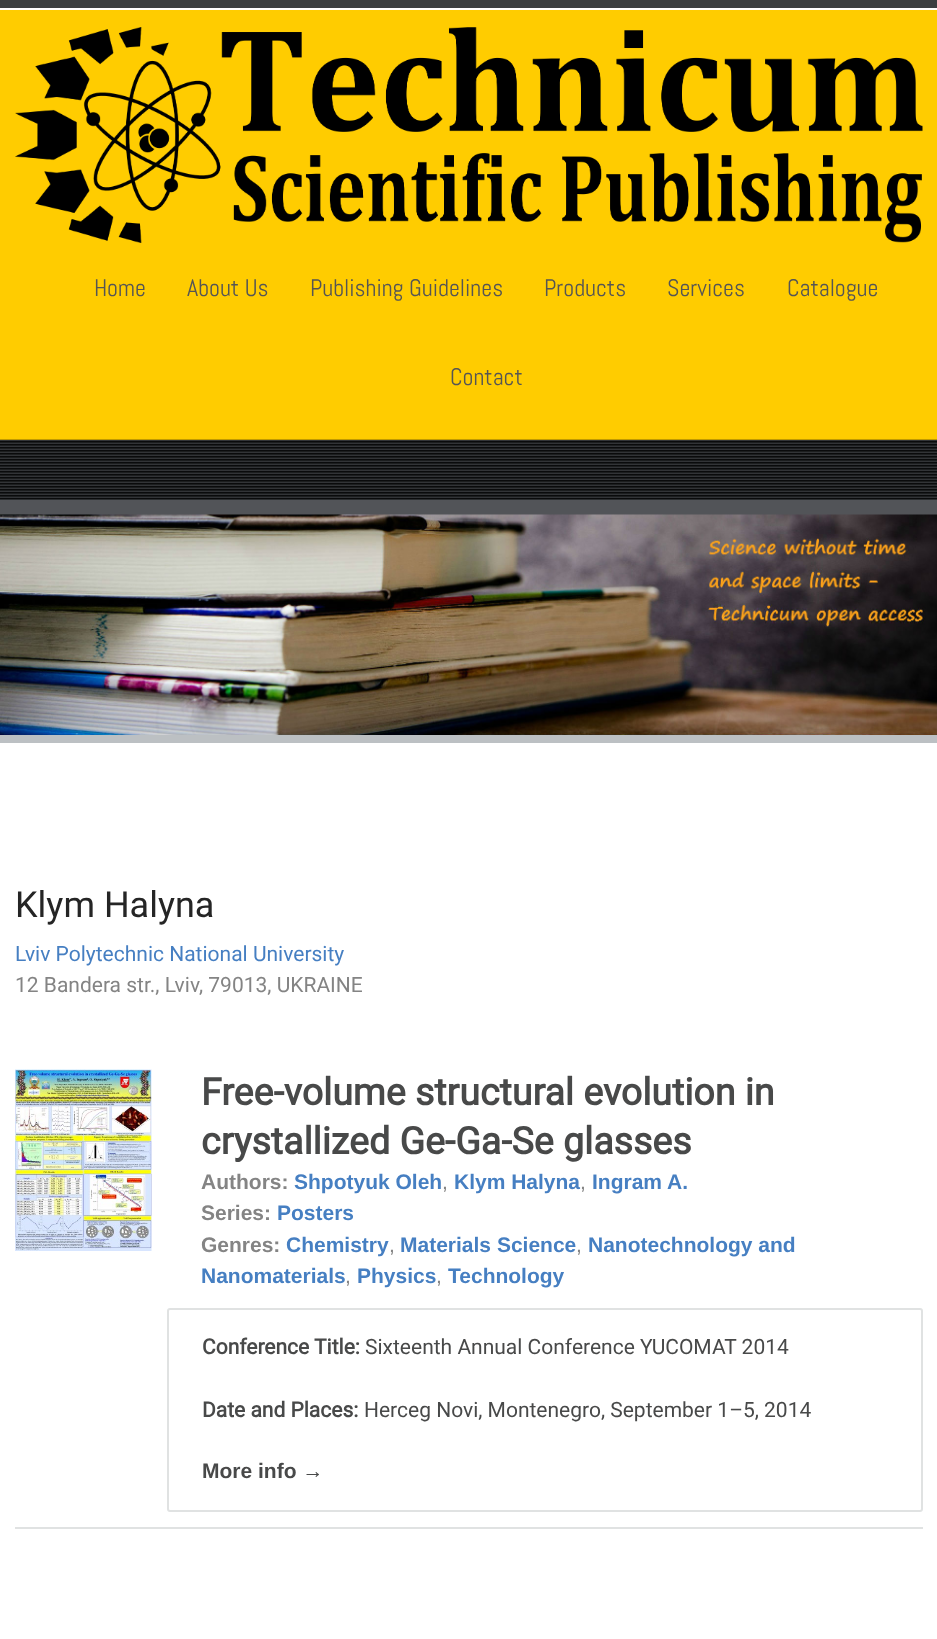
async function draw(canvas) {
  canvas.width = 937;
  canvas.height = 1639;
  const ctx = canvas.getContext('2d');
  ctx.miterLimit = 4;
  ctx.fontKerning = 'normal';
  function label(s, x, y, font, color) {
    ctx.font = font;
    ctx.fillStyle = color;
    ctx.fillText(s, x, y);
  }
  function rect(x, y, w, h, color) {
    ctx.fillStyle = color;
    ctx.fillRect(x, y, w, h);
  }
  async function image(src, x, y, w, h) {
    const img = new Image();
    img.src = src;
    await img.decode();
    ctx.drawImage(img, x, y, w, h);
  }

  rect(0, 0, 937, 1639, '#fff');
  rect(0, 0, 937, 8, '#3c3f41');
  rect(0, 10, 937, 430, '#fc0');
  await image('assets/img1.png', 15, 27, 908, 216);
  label('Home', 94, 296, '24px Abel', '#555');
  label('About Us', 187, 296, '24px Abel', '#555');
  label('Publishing Guidelines', 310, 296, '24px Abel', '#555');
  label('Products', 544, 296, '24px Abel', '#555');
  label('Services', 667, 296, '24px Abel', '#555');
  label('Catalogue', 787, 296, '24px Abel', '#555');
  label('Contact', 450, 385, '24px Abel', '#555');
  rect(0, 440, 937, 60, '#393c3f');
  await image('assets/img2.png', 0, 439, 937, 61);
  rect(0, 500, 937, 15, '#525458');
  rect(0, 735, 937, 8, '#bcc0c3');
  await image('assets/img3.png', 0, 514, 937, 221);
  label('Klym Halyna', 15, 917, '36px Roboto', '#252525');
  label('Lviv Polytechnic National University', 15, 961, '21px Roboto', '#467fc2');
  label('12 Bandera str., Lviv, 79013, UKRAINE', 15, 992, '21px Roboto', '#848484');
  rect(15, 1527, 908, 2, '#e0e2e2');
  await image('assets/img4.png', 15, 1069, 137, 182);
  label('Free-volume structural evolution in', 201, 1105, 'bold 37.5px Roboto', '#484949');
  label('crystallized Ge-Ga-Se glasses', 201, 1154, 'bold 37.5px Roboto', '#484949');
  label('Authors:', 201, 1189, 'bold 21px Liberation Sans', '#848484');
  label('Shpotyuk Oleh', 294, 1189, 'bold 21px Liberation Sans', '#467fc2');
  label(',', 442, 1189, '21px Liberation Sans', '#848484');
  label('Klym Halyna', 454, 1189, 'bold 21px Liberation Sans', '#467fc2');
  label(',', 580, 1189, '21px Liberation Sans', '#848484');
  label('Ingram A.', 592, 1189, 'bold 21px Liberation Sans', '#467fc2');
  label('Series:', 201, 1220, 'bold 21px Liberation Sans', '#848484');
  label('Posters', 277, 1220, 'bold 21px Liberation Sans', '#467fc2');
  label('Genres:', 201, 1252, 'bold 21px Liberation Sans', '#848484');
  label('Chemistry', 286, 1252, 'bold 21px Liberation Sans', '#467fc2');
  label(',', 389, 1252, '21px Liberation Sans', '#848484');
  label('Materials Science', 400, 1252, 'bold 21px Liberation Sans', '#467fc2');
  label(',', 576, 1252, '21px Liberation Sans', '#848484');
  label('Nanotechnology and', 588, 1252, 'bold 21px Liberation Sans', '#467fc2');
  label('Nanomaterials', 201, 1283, 'bold 21px Liberation Sans', '#467fc2');
  label(',', 345, 1283, '21px Liberation Sans', '#848484');
  label('Physics', 357, 1283, 'bold 21px Liberation Sans', '#467fc2');
  label(',', 436, 1283, '21px Liberation Sans', '#848484');
  label('Technology', 448, 1283, 'bold 21px Liberation Sans', '#467fc2');
  ctx.beginPath();
  ctx.roundRect(168, 1309, 754, 202, 2);
  ctx.strokeStyle = '#e0e2e2';
  ctx.lineWidth = 2;
  ctx.stroke();
  label('Conference Title:', 202, 1354, 'bold 21px Roboto', '#484949');
  label('Sixteenth Annual Conference YUCOMAT 2014', 365, 1354, '21px Roboto', '#484949');
  label('Date and Places:', 202, 1417, 'bold 21px Roboto', '#484949');
  label('Herceg Novi, Montenegro, September 1–5, 2014', 364, 1417, '21px Roboto', '#484949');
  label('More info →', 202, 1478, 'bold 21px Liberation Sans', '#484949');
}

draw(document.querySelector('canvas'));
